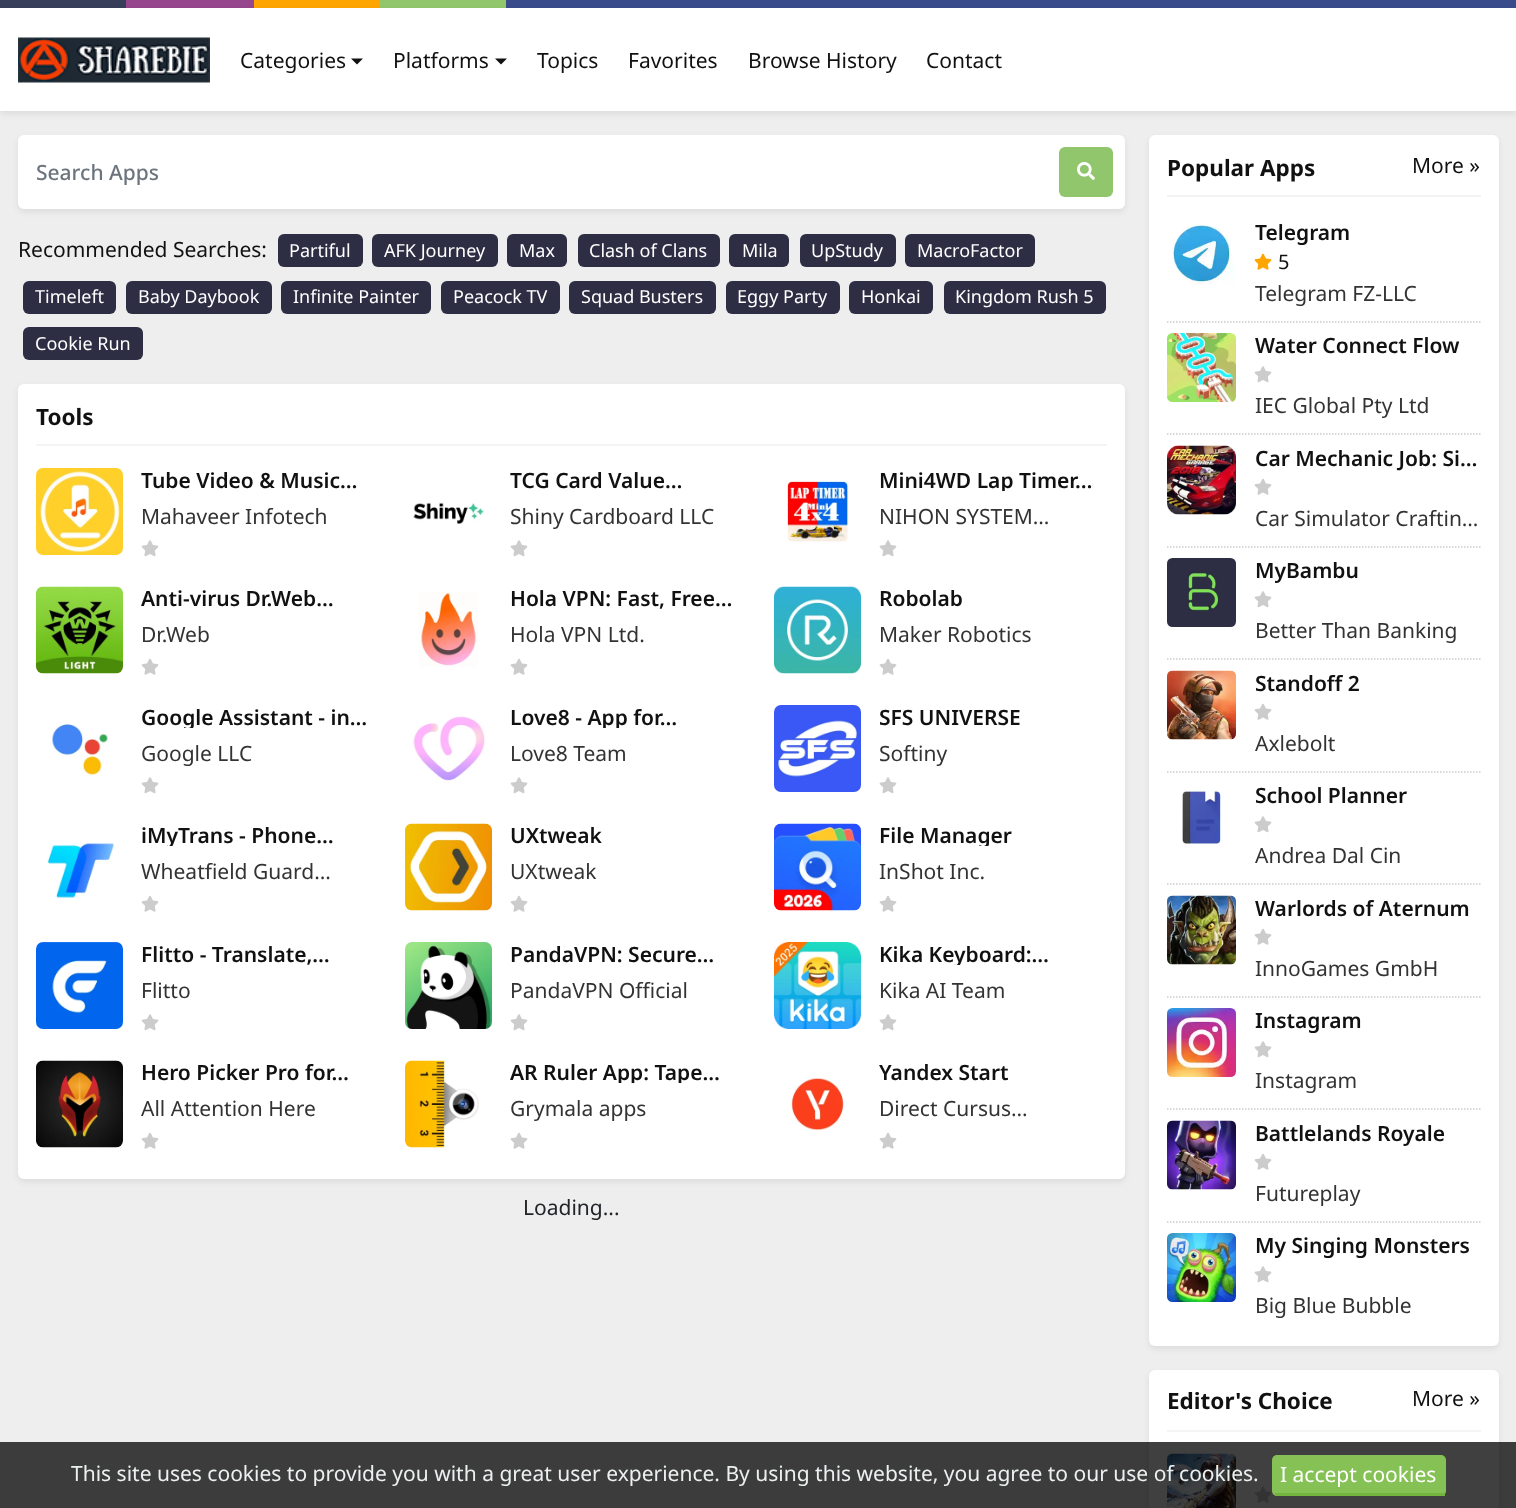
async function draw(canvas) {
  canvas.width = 1516;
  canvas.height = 1508;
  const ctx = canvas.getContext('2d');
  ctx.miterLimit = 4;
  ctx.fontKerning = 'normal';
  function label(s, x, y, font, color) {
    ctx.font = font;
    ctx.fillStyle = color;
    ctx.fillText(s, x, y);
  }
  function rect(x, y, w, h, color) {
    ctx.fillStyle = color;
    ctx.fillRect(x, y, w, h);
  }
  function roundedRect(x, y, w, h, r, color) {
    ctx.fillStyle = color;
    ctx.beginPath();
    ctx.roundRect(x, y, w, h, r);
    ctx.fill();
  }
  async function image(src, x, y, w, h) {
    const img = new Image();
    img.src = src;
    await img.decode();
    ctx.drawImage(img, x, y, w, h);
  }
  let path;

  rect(0, 0, 1516, 1508, '#eee');
  rect(0, 0, 126, 8, '#373e59');
  rect(126, 0, 128, 8, '#95468c');
  rect(254, 0, 126, 8, '#ffa500');
  rect(380, 0, 126, 8, '#92c66c');
  rect(506, 0, 1010, 8, '#3a4b8c');
  ctx.fillStyle = '#00000012';
  ctx.filter = 'blur(3px)';
  ctx.beginPath();
  ctx.rect(0, 11, 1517, 103);
  ctx.fill();
  ctx.filter = 'none';
  rect(0, 8, 1516, 103, '#fff');
  await image('assets/img1.png', 18, 37, 192, 46);
  label('Categories', 240, 68, '21px Noto Sans', '#111');
  path = new Path2D('M351 58.5H363L357 64.5Z');
  ctx.fill(path);
  label('Platforms', 393, 68, '21px Noto Sans', '#111');
  path = new Path2D('M495 58.5H507L501 64.5Z');
  ctx.fill(path);
  label('Topics', 537, 68, '21px Noto Sans', '#111');
  label('Favorites', 628, 68, '21px Noto Sans', '#111');
  label('Browse History', 748, 68, '21px Noto Sans', '#111');
  label('Contact', 926, 68, '21px Noto Sans', '#111');
  ctx.fillStyle = '#00000012';
  ctx.filter = 'blur(3px)';
  ctx.beginPath();
  ctx.roundRect(18, 138, 1107, 74, 6);
  ctx.fill();
  ctx.filter = 'none';
  roundedRect(18, 135, 1107, 74, 6, '#fff');
  label('Search Apps', 36, 180, '500 21px Noto Sans', '#6c757d');
  roundedRect(1059, 147, 54, 50, 6, '#92c66c');
  await image('assets/img2.png', 1077, 162, 18, 18);
  label('Recommended Searches:', 18, 257, '21px Noto Sans', '#111');
  roundedRect(278, 234, 85, 33, 6, '#2d2d44');
  label('Partiful', 289, 257, '18px Noto Sans', '#fff');
  roundedRect(372, 234, 126, 33, 6, '#2d2d44');
  label('AFK Journey', 384, 257, '18px Noto Sans', '#fff');
  roundedRect(507, 234, 60, 33, 6, '#2d2d44');
  label('Max', 519, 257, '18px Noto Sans', '#fff');
  roundedRect(578, 234, 142, 33, 6, '#2d2d44');
  label('Clash of Clans', 589, 257, '18px Noto Sans', '#fff');
  roundedRect(729, 234, 60, 33, 6, '#2d2d44');
  label('Mila', 742, 257, '18px Noto Sans', '#fff');
  roundedRect(800, 234, 96, 33, 6, '#2d2d44');
  label('UpStudy', 811, 257, '18px Noto Sans', '#fff');
  roundedRect(905, 234, 130, 33, 6, '#2d2d44');
  label('MacroFactor', 917, 257, '18px Noto Sans', '#fff');
  roundedRect(23, 281, 93, 33, 6, '#2d2d44');
  label('Timeleft', 35, 303, '18px Noto Sans', '#fff');
  roundedRect(126, 281, 146, 33, 6, '#2d2d44');
  label('Baby Daybook', 138, 303, '18px Noto Sans', '#fff');
  roundedRect(281, 281, 150, 33, 6, '#2d2d44');
  label('Infinite Painter', 293, 303, '18px Noto Sans', '#fff');
  roundedRect(441, 281, 119, 33, 6, '#2d2d44');
  label('Peacock TV', 453, 303, '18px Noto Sans', '#fff');
  roundedRect(569, 281, 147, 33, 6, '#2d2d44');
  label('Squad Busters', 581, 303, '18px Noto Sans', '#fff');
  roundedRect(726, 281, 114, 33, 6, '#2d2d44');
  label('Eggy Party', 737, 303, '18px Noto Sans', '#fff');
  roundedRect(849, 281, 84, 33, 6, '#2d2d44');
  label('Honkai', 861, 303, '18px Noto Sans', '#fff');
  roundedRect(944, 281, 162, 33, 6, '#2d2d44');
  label('Kingdom Rush 5', 955, 303, '18px Noto Sans', '#fff');
  roundedRect(23, 327, 120, 33, 6, '#2d2d44');
  label('Cookie Run', 35, 350, '18px Noto Sans', '#fff');
  ctx.fillStyle = '#00000012';
  ctx.filter = 'blur(3px)';
  ctx.beginPath();
  ctx.roundRect(18, 387, 1107, 795, 6);
  ctx.fill();
  ctx.filter = 'none';
  roundedRect(18, 384, 1107, 795, 6, '#fff');
  rect(36, 444, 1071, 2, '#f4f4f4');
  label('Tools', 36, 425, 'bold 22.5px Noto Sans', '#111');
  await image('assets/img3.png', 36, 468, 87, 87);
  label('Tube Video & Music…', 141, 488, '600 21px Noto Sans', '#111');
  label('Mahaveer Infotech', 141, 524, '21px Noto Sans', '#333');
  await image('assets/img4.png', 141, 540, 18, 17);
  await image('assets/img5.png', 413, 502, 71, 22);
  label('TCG Card Value…', 510, 488, '600 21px Noto Sans', '#111');
  label('Shiny Cardboard LLC', 510, 524, '21px Noto Sans', '#333');
  await image('assets/img4.png', 510, 540, 18, 17);
  await image('assets/img6.png', 787, 481, 61, 61);
  ctx.save();
  ctx.beginPath();
  ctx.rect(879, 468, 228, 23);
  ctx.clip();
  label('Mini4WD Lap Timer…', 879, 488, '600 21px Noto Sans', '#111');
  ctx.restore();
  label('NIHON SYSTEM…', 879, 524, '21px Noto Sans', '#333');
  await image('assets/img4.png', 879, 540, 18, 17);
  await image('assets/img7.png', 36, 586, 87, 88);
  label('Anti-virus Dr.Web…', 141, 606, '600 21px Noto Sans', '#111');
  label('Dr.Web', 141, 642, '21px Noto Sans', '#333');
  await image('assets/img8.png', 141, 658, 18, 17);
  await image('assets/img9.png', 419, 592, 59, 75);
  label('Hola VPN: Fast, Free…', 510, 606, '600 21px Noto Sans', '#111');
  label('Hola VPN Ltd.', 510, 642, '21px Noto Sans', '#333');
  await image('assets/img8.png', 510, 658, 18, 17);
  await image('assets/img10.png', 774, 586, 87, 88);
  label('Robolab', 879, 606, '600 21px Noto Sans', '#111');
  label('Maker Robotics', 879, 642, '21px Noto Sans', '#333');
  await image('assets/img8.png', 879, 658, 18, 17);
  await image('assets/img11.png', 51, 723, 57, 53);
  ctx.save();
  ctx.beginPath();
  ctx.rect(141, 705, 228, 23);
  ctx.clip();
  label('Google Assistant - in…', 141, 725, '600 21px Noto Sans', '#111');
  ctx.restore();
  label('Google LLC', 141, 761, '21px Noto Sans', '#333');
  await image('assets/img4.png', 141, 777, 18, 17);
  await image('assets/img12.png', 413, 716, 72, 66);
  ctx.save();
  ctx.beginPath();
  ctx.rect(510, 705, 228, 23);
  ctx.clip();
  label('Love8 - App for…', 510, 725, '600 21px Noto Sans', '#111');
  ctx.restore();
  label('Love8 Team', 510, 761, '21px Noto Sans', '#333');
  await image('assets/img4.png', 510, 777, 18, 17);
  await image('assets/img13.png', 774, 705, 87, 87);
  label('SFS UNIVERSE', 879, 725, '600 21px Noto Sans', '#111');
  label('Softiny', 879, 761, '21px Noto Sans', '#333');
  await image('assets/img4.png', 879, 777, 18, 17);
  await image('assets/img14.png', 47, 843, 67, 56);
  ctx.save();
  ctx.beginPath();
  ctx.rect(141, 824, 228, 22);
  ctx.clip();
  label('iMyTrans - Phone…', 141, 843, '600 21px Noto Sans', '#111');
  ctx.restore();
  label('Wheatfield Guard…', 141, 879, '21px Noto Sans', '#333');
  await image('assets/img8.png', 141, 895, 18, 17);
  await image('assets/img15.png', 405, 823, 87, 88);
  label('UXtweak', 510, 843, '600 21px Noto Sans', '#111');
  label('UXtweak', 510, 879, '21px Noto Sans', '#333');
  await image('assets/img8.png', 510, 895, 18, 17);
  await image('assets/img16.png', 774, 823, 87, 88);
  ctx.save();
  ctx.beginPath();
  ctx.rect(879, 824, 228, 22);
  ctx.clip();
  label('File Manager', 879, 843, '600 21px Noto Sans', '#111');
  ctx.restore();
  label('InShot Inc.', 879, 879, '21px Noto Sans', '#333');
  await image('assets/img8.png', 879, 895, 18, 17);
  await image('assets/img17.png', 36, 942, 87, 87);
  label('Flitto - Translate,…', 141, 962, '600 21px Noto Sans', '#111');
  label('Flitto', 141, 998, '21px Noto Sans', '#333');
  await image('assets/img4.png', 141, 1014, 18, 17);
  await image('assets/img18.png', 405, 942, 87, 87);
  label('PandaVPN: Secure…', 510, 962, '600 21px Noto Sans', '#111');
  label('PandaVPN Official', 510, 998, '21px Noto Sans', '#333');
  await image('assets/img4.png', 510, 1014, 18, 17);
  await image('assets/img19.png', 774, 942, 87, 87);
  ctx.save();
  ctx.beginPath();
  ctx.rect(879, 942, 228, 23);
  ctx.clip();
  label('Kika Keyboard:…', 879, 962, '600 21px Noto Sans', '#111');
  ctx.restore();
  label('Kika AI Team', 879, 998, '21px Noto Sans', '#333');
  await image('assets/img4.png', 879, 1014, 18, 17);
  await image('assets/img20.png', 36, 1060, 87, 88);
  label('Hero Picker Pro for…', 141, 1080, '600 21px Noto Sans', '#111');
  label('All Attention Here', 141, 1116, '21px Noto Sans', '#333');
  await image('assets/img8.png', 141, 1132, 18, 17);
  await image('assets/img21.png', 405, 1060, 74, 88);
  ctx.save();
  ctx.beginPath();
  ctx.rect(510, 1061, 228, 22);
  ctx.clip();
  label('AR Ruler App: Tape…', 510, 1080, '600 21px Noto Sans', '#111');
  ctx.restore();
  label('Grymala apps', 510, 1116, '21px Noto Sans', '#333');
  await image('assets/img8.png', 510, 1132, 18, 17);
  await image('assets/img22.png', 791, 1078, 53, 53);
  label('Yandex Start', 879, 1080, '600 21px Noto Sans', '#111');
  label('Direct Cursus…', 879, 1116, '21px Noto Sans', '#333');
  await image('assets/img8.png', 879, 1132, 18, 17);
  label('Loading...', 523, 1215, '21px Noto Sans', '#212529');
  ctx.fillStyle = '#00000012';
  ctx.filter = 'blur(3px)';
  ctx.beginPath();
  ctx.roundRect(1149, 138, 350, 1211, 6);
  ctx.fill();
  ctx.filter = 'none';
  roundedRect(1149, 135, 350, 1211, 6, '#fff');
  rect(1167, 195, 314, 2, '#f4f4f4');
  label('Popular Apps', 1167, 176, 'bold 22.5px Noto Sans', '#111');
  label('More »', 1412, 173, '21px Noto Sans', '#111');
  await image('assets/img23.png', 1172, 224, 63, 61);
  label('Telegram', 1255, 240, '600 21px Noto Sans', '#111');
  await image('assets/img24.png', 1254, 253, 18, 17);
  label('5', 1278, 269, '20px Noto Sans', '#111');
  label('Telegram FZ-LLC', 1255, 301, '21px Noto Sans', '#333');
  path = new Path2D('M1167 322H1480.5');
  ctx.strokeStyle = '#ccc';
  ctx.lineWidth = 1.5;
  ctx.setLineDash([1.5, 1.5]);
  ctx.stroke(path);
  await image('assets/img25.png', 1167, 333, 69, 69);
  label('Water Connect Flow', 1255, 353, '600 21px Noto Sans', '#111');
  await image('assets/img4.png', 1254, 366, 18, 17);
  label('IEC Global Pty Ltd', 1255, 413, '21px Noto Sans', '#333');
  path = new Path2D('M1167 434H1480.5');
  ctx.stroke(path);
  await image('assets/img26.png', 1167, 445, 69, 70);
  label('Car Mechanic Job: Si…', 1255, 466, '600 21px Noto Sans', '#111');
  await image('assets/img8.png', 1254, 478, 18, 17);
  label('Car Simulator Craftin…', 1255, 526, '21px Noto Sans', '#333');
  path = new Path2D('M1167 547H1480.5');
  ctx.stroke(path);
  await image('assets/img27.png', 1167, 558, 69, 69);
  label('MyBambu', 1255, 578, '600 21px Noto Sans', '#111');
  await image('assets/img4.png', 1254, 591, 18, 17);
  label('Better Than Banking', 1255, 638, '21px Noto Sans', '#333');
  path = new Path2D('M1167 659H1480.5');
  ctx.stroke(path);
  await image('assets/img28.png', 1167, 670, 69, 70);
  label('Standoff 2', 1255, 691, '600 21px Noto Sans', '#111');
  await image('assets/img8.png', 1254, 703, 18, 17);
  label('Axlebolt', 1255, 751, '21px Noto Sans', '#333');
  path = new Path2D('M1167 772H1480.5');
  ctx.stroke(path);
  await image('assets/img29.png', 1182, 790, 40, 54);
  label('School Planner', 1255, 803, '600 21px Noto Sans', '#111');
  await image('assets/img4.png', 1254, 816, 18, 17);
  label('Andrea Dal Cin', 1255, 863, '21px Noto Sans', '#333');
  path = new Path2D('M1167 884H1480.5');
  ctx.stroke(path);
  await image('assets/img30.png', 1167, 895, 69, 70);
  label('Warlords of Aternum', 1255, 916, '600 21px Noto Sans', '#111');
  await image('assets/img8.png', 1254, 928, 18, 17);
  label('InnoGames GmbH', 1255, 976, '21px Noto Sans', '#333');
  path = new Path2D('M1167 997H1480.5');
  ctx.stroke(path);
  await image('assets/img31.png', 1167, 1008, 69, 69);
  label('Instagram', 1255, 1028, '600 21px Noto Sans', '#111');
  await image('assets/img4.png', 1254, 1041, 18, 17);
  label('Instagram', 1255, 1088, '21px Noto Sans', '#333');
  path = new Path2D('M1167 1109H1480.5');
  ctx.stroke(path);
  await image('assets/img32.png', 1167, 1120, 69, 70);
  label('Battlelands Royale', 1255, 1141, '600 21px Noto Sans', '#111');
  await image('assets/img8.png', 1254, 1153, 18, 17);
  label('Futureplay', 1255, 1201, '21px Noto Sans', '#333');
  path = new Path2D('M1167 1222H1480.5');
  ctx.stroke(path);
  await image('assets/img33.png', 1167, 1233, 69, 69);
  label('My Singing Monsters', 1255, 1253, '600 21px Noto Sans', '#111');
  await image('assets/img4.png', 1254, 1266, 18, 17);
  label('Big Blue Bubble', 1255, 1313, '21px Noto Sans', '#333');
  ctx.fillStyle = '#00000012';
  ctx.filter = 'blur(3px)';
  ctx.beginPath();
  ctx.roundRect(1149, 1373, 350, 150, 6);
  ctx.fill();
  ctx.filter = 'none';
  roundedRect(1149, 1370, 350, 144, 6, '#fff');
  rect(1167, 1430, 314, 2, '#f4f4f4');
  label('Editor\'s Choice', 1167, 1409, 'bold 22.5px Noto Sans', '#111');
  label('More »', 1412, 1406, '21px Noto Sans', '#111');
  await image('assets/img34.png', 1167, 1453, 69, 55);
  await image('assets/img8.png', 1254, 1486, 18, 17);
  rect(0, 1442, 1516, 66, '#000000bf');
  label('This site uses cookies to provide you with a great user experience. By using this website, you agree to our use of cookies.', 71, 1481, '21px Noto Sans', '#ecf0f1');
  roundedRect(1272, 1455, 174, 41, 5, '#85c154');
  rect(1275, 1493, 170, 3, '#73b33e');
  label('I accept cookies', 1280, 1482, '21px Noto Sans', '#fff');
}

draw(document.querySelector('canvas'));
